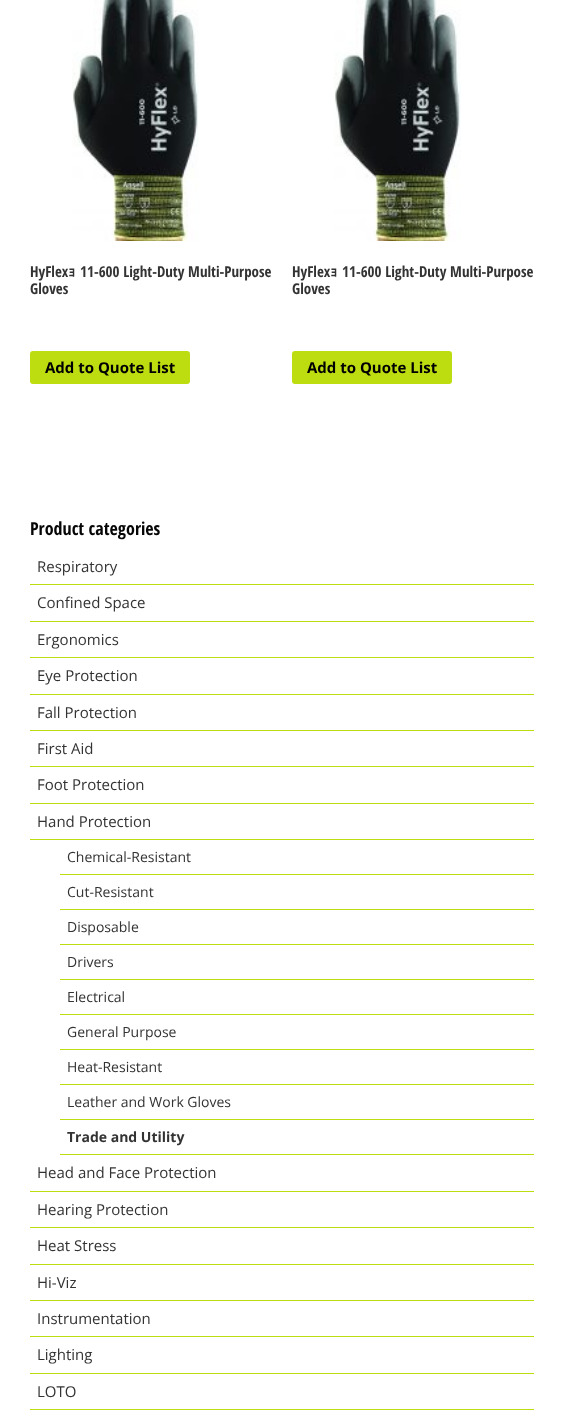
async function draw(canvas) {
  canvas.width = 564;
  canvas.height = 1423;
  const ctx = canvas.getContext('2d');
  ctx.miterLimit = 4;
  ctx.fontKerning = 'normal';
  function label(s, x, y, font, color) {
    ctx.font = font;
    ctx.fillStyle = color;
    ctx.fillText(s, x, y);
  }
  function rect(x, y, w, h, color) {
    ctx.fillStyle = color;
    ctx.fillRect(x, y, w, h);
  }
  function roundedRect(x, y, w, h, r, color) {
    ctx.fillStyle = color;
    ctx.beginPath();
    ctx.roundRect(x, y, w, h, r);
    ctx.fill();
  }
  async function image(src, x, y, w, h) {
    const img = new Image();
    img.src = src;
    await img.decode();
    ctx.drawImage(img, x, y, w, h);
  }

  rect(0, 0, 564, 1423, '#fff');
  await image('assets/img1.png', 72, 0, 127, 241);
  label('HyFlex', 30, 277, 'bold 15px Open Sans Condensed', '#333');
  label('ｮ', 68, 277, 'bold 15px IPAGothic', '#333');
  label('11-600 Light-Duty Multi-Purpose', 80, 277, 'bold 15px Open Sans Condensed', '#333');
  label('Gloves', 30, 294, 'bold 15px Open Sans Condensed', '#333');
  roundedRect(30, 351, 160, 33, 3, '#bddd10');
  label('Add to Quote List', 45, 373, 'bold 15px Open Sans', '#000');
  await image('assets/img1.png', 334, 0, 127, 241);
  label('HyFlex', 292, 277, 'bold 15px Open Sans Condensed', '#333');
  label('ｮ', 330, 277, 'bold 15px IPAGothic', '#333');
  label('11-600 Light-Duty Multi-Purpose', 342, 277, 'bold 15px Open Sans Condensed', '#333');
  label('Gloves', 292, 294, 'bold 15px Open Sans Condensed', '#333');
  roundedRect(292, 351, 160, 33, 3, '#bddd10');
  label('Add to Quote List', 307, 373, 'bold 15px Open Sans', '#000');
  label('Product categories', 30, 535, 'bold 18px Open Sans Condensed', '#060606');
  rect(30, 584, 504, 1, '#bddd10');
  label('Respiratory', 37, 572, '15px Open Sans', '#333');
  rect(30, 621, 504, 1, '#bddd10');
  label('Confined Space', 37, 608, '15px Open Sans', '#333');
  rect(30, 657, 504, 1, '#bddd10');
  label('Ergonomics', 37, 645, '15px Open Sans', '#333');
  rect(30, 694, 504, 1, '#bddd10');
  label('Eye Protection', 37, 681, '15px Open Sans', '#333');
  rect(30, 730, 504, 1, '#bddd10');
  label('Fall Protection', 37, 718, '15px Open Sans', '#333');
  rect(30, 766, 504, 1, '#bddd10');
  label('First Aid', 37, 754, '15px Open Sans', '#333');
  rect(30, 803, 504, 1, '#bddd10');
  label('Foot Protection', 37, 790, '15px Open Sans', '#333');
  rect(30, 839, 504, 1, '#bddd10');
  label('Hand Protection', 37, 827, '15px Open Sans', '#333');
  rect(60, 874, 474, 1, '#bddd10');
  label('Chemical-Resistant', 67, 862, '14px Open Sans', '#333');
  rect(60, 909, 474, 1, '#bddd10');
  label('Cut-Resistant', 67, 897, '14px Open Sans', '#333');
  rect(60, 944, 474, 1, '#bddd10');
  label('Disposable', 67, 932, '14px Open Sans', '#333');
  rect(60, 979, 474, 1, '#bddd10');
  label('Drivers', 67, 967, '14px Open Sans', '#333');
  rect(60, 1014, 474, 1, '#bddd10');
  label('Electrical', 67, 1002, '14px Open Sans', '#333');
  rect(60, 1049, 474, 1, '#bddd10');
  label('General Purpose', 67, 1037, '14px Open Sans', '#333');
  rect(60, 1084, 474, 1, '#bddd10');
  label('Heat-Resistant', 67, 1072, '14px Open Sans', '#333');
  rect(60, 1119, 474, 1, '#bddd10');
  label('Leather and Work Gloves', 67, 1107, '14px Open Sans', '#333');
  rect(60, 1154, 474, 1, '#bddd10');
  label('Trade and Utility', 67, 1142, 'bold 14px Open Sans', '#333');
  rect(30, 1191, 504, 1, '#bddd10');
  label('Head and Face Protection', 37, 1178, '15px Open Sans', '#333');
  rect(30, 1227, 504, 1, '#bddd10');
  label('Hearing Protection', 37, 1215, '15px Open Sans', '#333');
  rect(30, 1264, 504, 1, '#bddd10');
  label('Heat Stress', 37, 1251, '15px Open Sans', '#333');
  rect(30, 1300, 504, 1, '#bddd10');
  label('Hi-Viz', 37, 1288, '15px Open Sans', '#333');
  rect(30, 1336, 504, 1, '#bddd10');
  label('Instrumentation', 37, 1324, '15px Open Sans', '#333');
  rect(30, 1373, 504, 1, '#bddd10');
  label('Lighting', 37, 1360, '15px Open Sans', '#333');
  rect(30, 1409, 504, 1, '#bddd10');
  label('LOTO', 37, 1397, '15px Open Sans', '#333');
}

draw(document.querySelector('canvas'));
